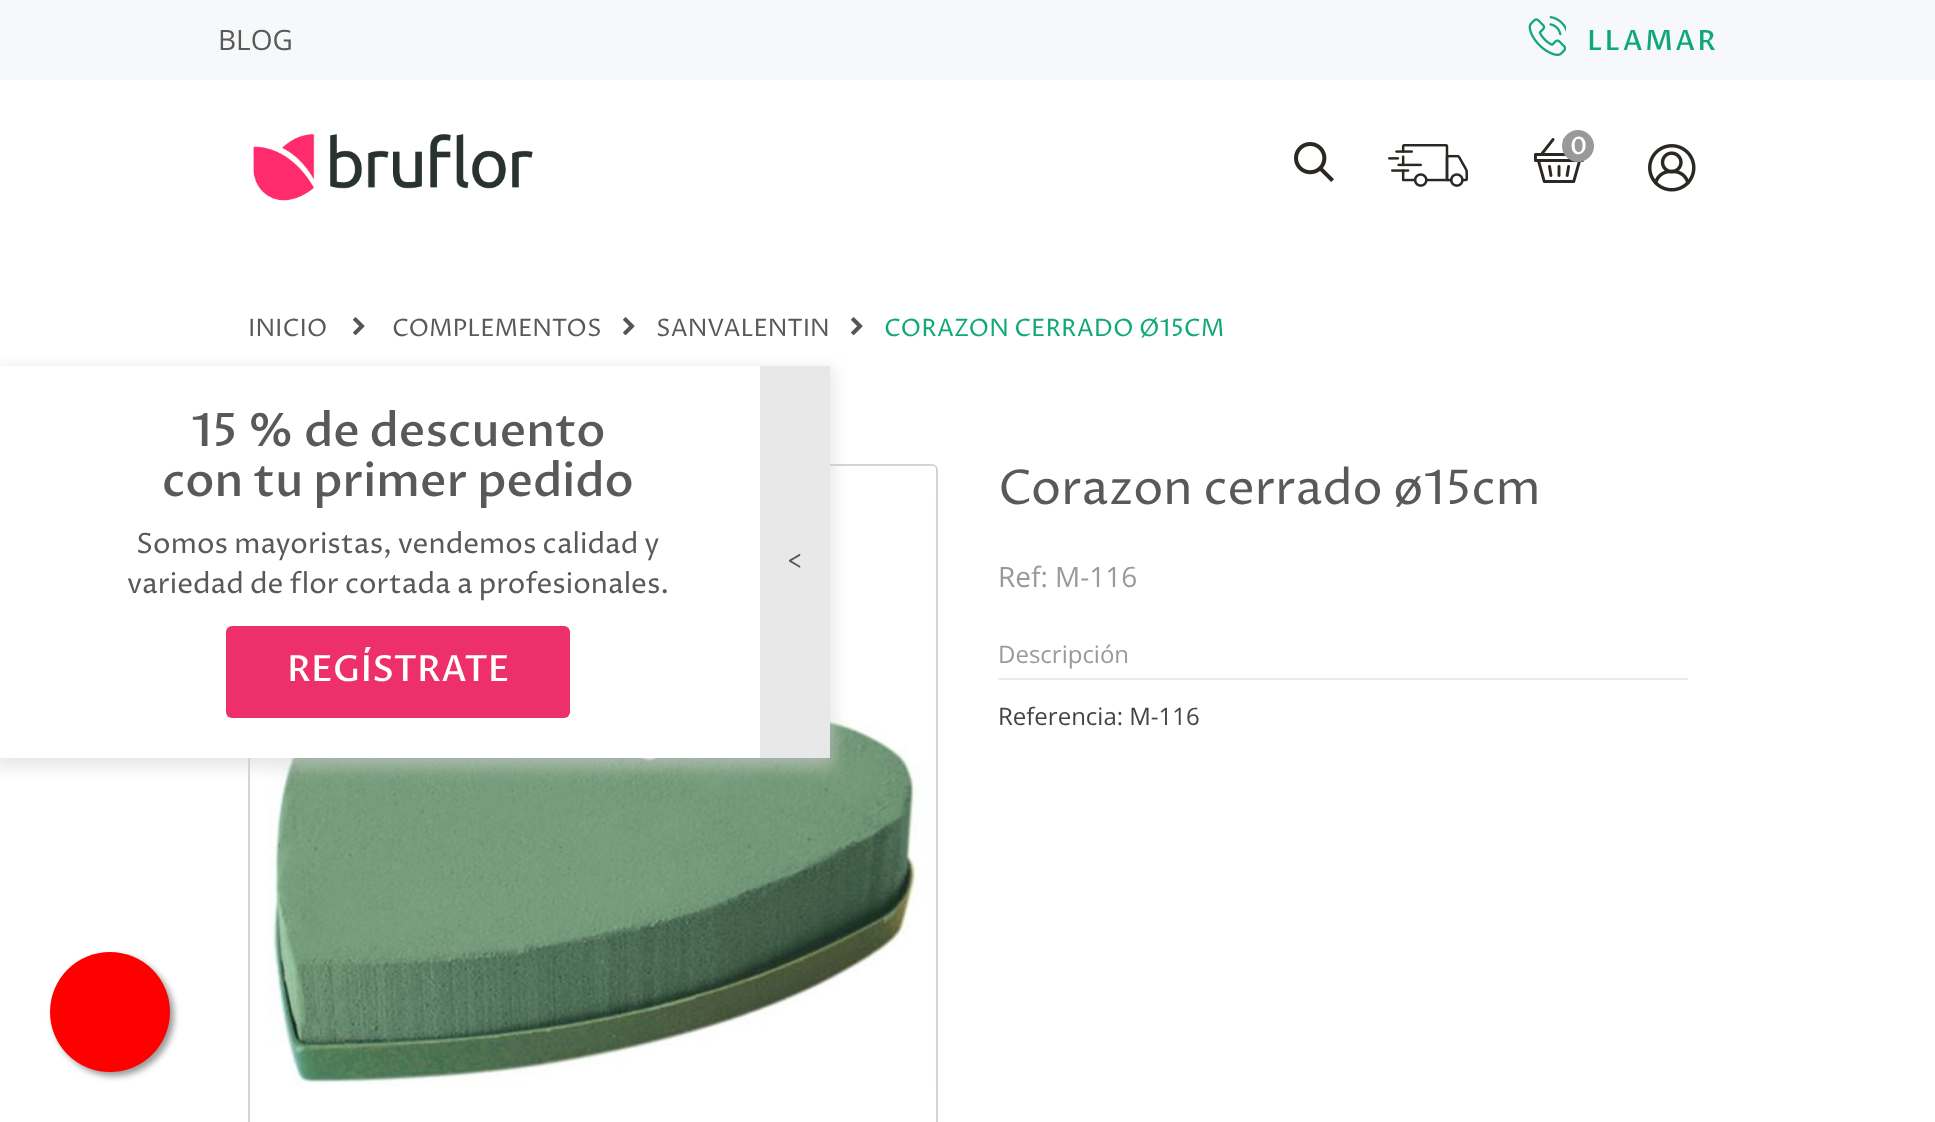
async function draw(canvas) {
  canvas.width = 1935;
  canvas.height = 1122;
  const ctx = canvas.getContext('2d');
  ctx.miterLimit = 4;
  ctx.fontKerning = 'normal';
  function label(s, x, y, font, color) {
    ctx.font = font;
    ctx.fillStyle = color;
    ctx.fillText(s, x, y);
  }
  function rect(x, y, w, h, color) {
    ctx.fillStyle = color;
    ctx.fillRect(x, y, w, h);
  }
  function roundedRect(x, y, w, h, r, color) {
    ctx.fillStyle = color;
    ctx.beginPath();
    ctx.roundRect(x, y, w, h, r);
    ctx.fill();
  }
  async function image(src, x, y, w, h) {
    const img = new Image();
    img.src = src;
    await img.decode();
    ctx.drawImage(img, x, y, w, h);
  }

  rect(0, 0, 1935, 1122, '#fff');
  rect(0, 0, 1935, 80, '#f7f8fa');
  label('BLOG', 218, 50, '28px Open Sans', '#595959');
  await image('assets/img1.png', 1528, 16, 38, 40);
  ctx.letterSpacing = '2.25px';
  label('LLAMAR', 1587, 50, '500 28px Proza Libre', '#0fa877');
  await image('assets/img2.png', 253, 134, 280, 67);
  await image('assets/img3.png', 1294, 142, 40, 40);
  await image('assets/img4.png', 1388, 144, 80, 43);
  await image('assets/img5.png', 1534, 138, 50, 45);
  ctx.fillStyle = '#999';
  ctx.beginPath();
  ctx.arc(1578, 146, 16, 0, 2 * Math.PI);
  ctx.fill();
  ctx.letterSpacing = '0px';
  label('0', 1570, 154, '500 24px Proza Libre', '#fff');
  await image('assets/img6.png', 1648, 144, 48, 48);
  ctx.fillStyle = '#999';
  ctx.filter = 'blur(3px)';
  ctx.beginPath();
  ctx.roundRect(54, 956, 120, 120, 60);
  ctx.fill();
  ctx.filter = 'none';
  ctx.fillStyle = '#f00';
  ctx.beginPath();
  ctx.arc(110, 1012, 60, 0, 2 * Math.PI);
  ctx.fill();
  label('INICIO', 248, 336, '24px Proza Libre', '#595959');
  await image('assets/img7.png', 353, 317, 12, 19);
  label('COMPLEMENTOS', 392, 336, '24px Proza Libre', '#595959');
  await image('assets/img7.png', 623, 317, 12, 19);
  label('SANVALENTIN', 656, 336, '24px Proza Libre', '#595959');
  await image('assets/img7.png', 851, 317, 12, 19);
  label('CORAZON CERRADO Ø15CM', 884, 336, '24px Proza Libre', '#0fa877');
  ctx.beginPath();
  ctx.roundRect(249, 465, 688, 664, 5);
  ctx.strokeStyle = '#d4d4d4';
  ctx.lineWidth = 2;
  ctx.stroke();
  await image('assets/img8.png', 250, 466, 686, 620);
  label('Corazon cerrado ø15cm', 998, 504, '48px Proza Libre', '#595959');
  label('Ref: M-116', 998, 587, '28px Open Sans', '#9a9a9a');
  rect(998, 678, 690, 2, '#ebebeb');
  label('Descripción', 998, 663, '24px Open Sans', '#9a9a9a');
  label('Referencia: M-116', 998, 725, '24px Open Sans', '#444');
  ctx.fillStyle = '#d3d3d38c';
  ctx.filter = 'blur(8px)';
  ctx.beginPath();
  ctx.rect(-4, 368, 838, 400);
  ctx.fill();
  ctx.filter = 'none';
  rect(0, 366, 760, 392, '#fff');
  label('15 % de descuento', 191, 446, '500 46px Proza Libre', '#595959');
  label('con tu primer pedido', 162, 496, '500 46px Proza Libre', '#595959');
  label('Somos mayoristas, vendemos calidad y', 136, 553, '28px Proza Libre', '#595959');
  label('variedad de flor cortada a profesionales.', 127, 593, '28px Proza Libre', '#595959');
  roundedRect(226, 626, 344, 92, 6, '#ed2f6b');
  label('REGÍSTRATE', 287, 681, '500 36px Proza Libre', '#fff');
  rect(760, 366, 70, 392, '#e8e8e8');
  label('<', 787, 569, '28px Proza Libre', '#595959');
}

draw(document.querySelector('canvas'));
